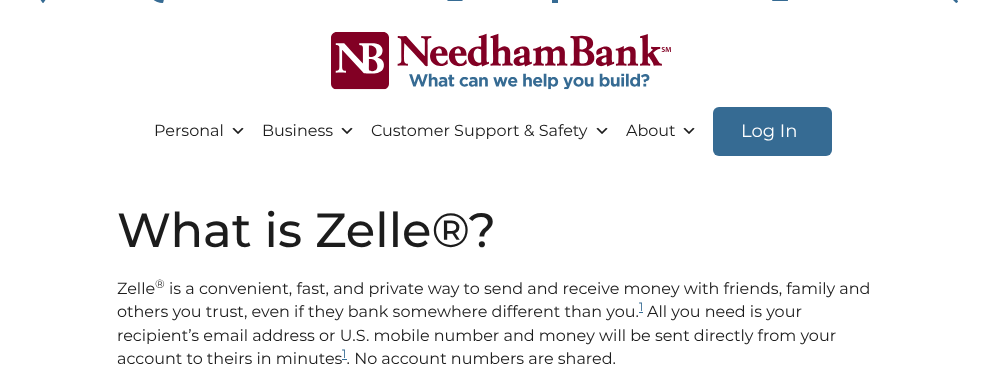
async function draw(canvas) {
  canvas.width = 1002;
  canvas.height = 372;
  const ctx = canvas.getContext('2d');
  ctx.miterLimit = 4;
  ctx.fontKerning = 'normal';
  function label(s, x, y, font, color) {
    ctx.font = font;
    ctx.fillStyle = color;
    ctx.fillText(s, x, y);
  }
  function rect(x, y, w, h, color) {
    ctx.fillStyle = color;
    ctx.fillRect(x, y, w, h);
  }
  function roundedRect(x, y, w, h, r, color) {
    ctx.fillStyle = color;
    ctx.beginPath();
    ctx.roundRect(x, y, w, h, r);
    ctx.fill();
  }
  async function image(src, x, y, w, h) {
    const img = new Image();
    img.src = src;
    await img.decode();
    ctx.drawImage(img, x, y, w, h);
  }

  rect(0, 0, 1002, 372, '#fff');
  await image('assets/img1.png', 40, 0, 6, 3);
  await image('assets/img2.png', 153, 0, 11, 3);
  await image('assets/img3.png', 447, 0, 16, 1);
  rect(552, 0, 6, 3, '#366b93');
  await image('assets/img4.png', 772, 0, 16, 1);
  await image('assets/img5.png', 953, 0, 5, 3);
  await image('assets/img6.png', 331, 32, 340, 58);
  label('Personal', 154, 136, '16px Montserrat', '#1c1c1c');
  await image('assets/img7.png', 232, 127, 12, 7);
  label('Business', 262, 136, '16px Montserrat', '#1c1c1c');
  await image('assets/img7.png', 341, 127, 12, 7);
  label('Customer Support & Safety', 371, 136, '16px Montserrat', '#1c1c1c');
  await image('assets/img7.png', 596, 127, 12, 7);
  label('About', 626, 136, '16px Montserrat', '#1c1c1c');
  await image('assets/img7.png', 683, 127, 12, 7);
  roundedRect(713, 107, 119, 49, 6, '#366b93');
  label('Log In', 741, 137, '18px Montserrat', '#fff');
  label('What is Zelle®?', 117, 247, '500 48px Montserrat', '#1c1c1c');
  label('Zelle', 117, 294, '16px Montserrat', '#1c1c1c');
  label('®', 155, 288, '12px Montserrat', '#1c1c1c');
  label('is a convenient, fast, and private way to send and receive money with friends, family and', 169, 294, '16px Montserrat', '#1c1c1c');
  label('others you trust, even if they bank somewhere different than you.', 117, 317, '16px Montserrat', '#1c1c1c');
  label('1', 639, 311, '12px Montserrat', '#366b93');
  rect(639, 312, 4, 1, '#366b93');
  label('All you need is your', 647, 317, '16px Montserrat', '#1c1c1c');
  label('recipient’s email address or U.S. mobile number and money will be sent directly from your', 117, 341, '16px Montserrat', '#1c1c1c');
  label('account to theirs in minutes . No account numbers are shared.', 117, 364, '16px Montserrat', '#1c1c1c');
  label('1', 342, 358, '12px Montserrat', '#366b93');
  rect(342, 359, 5, 1, '#366b93');
}

draw(document.querySelector('canvas'));
